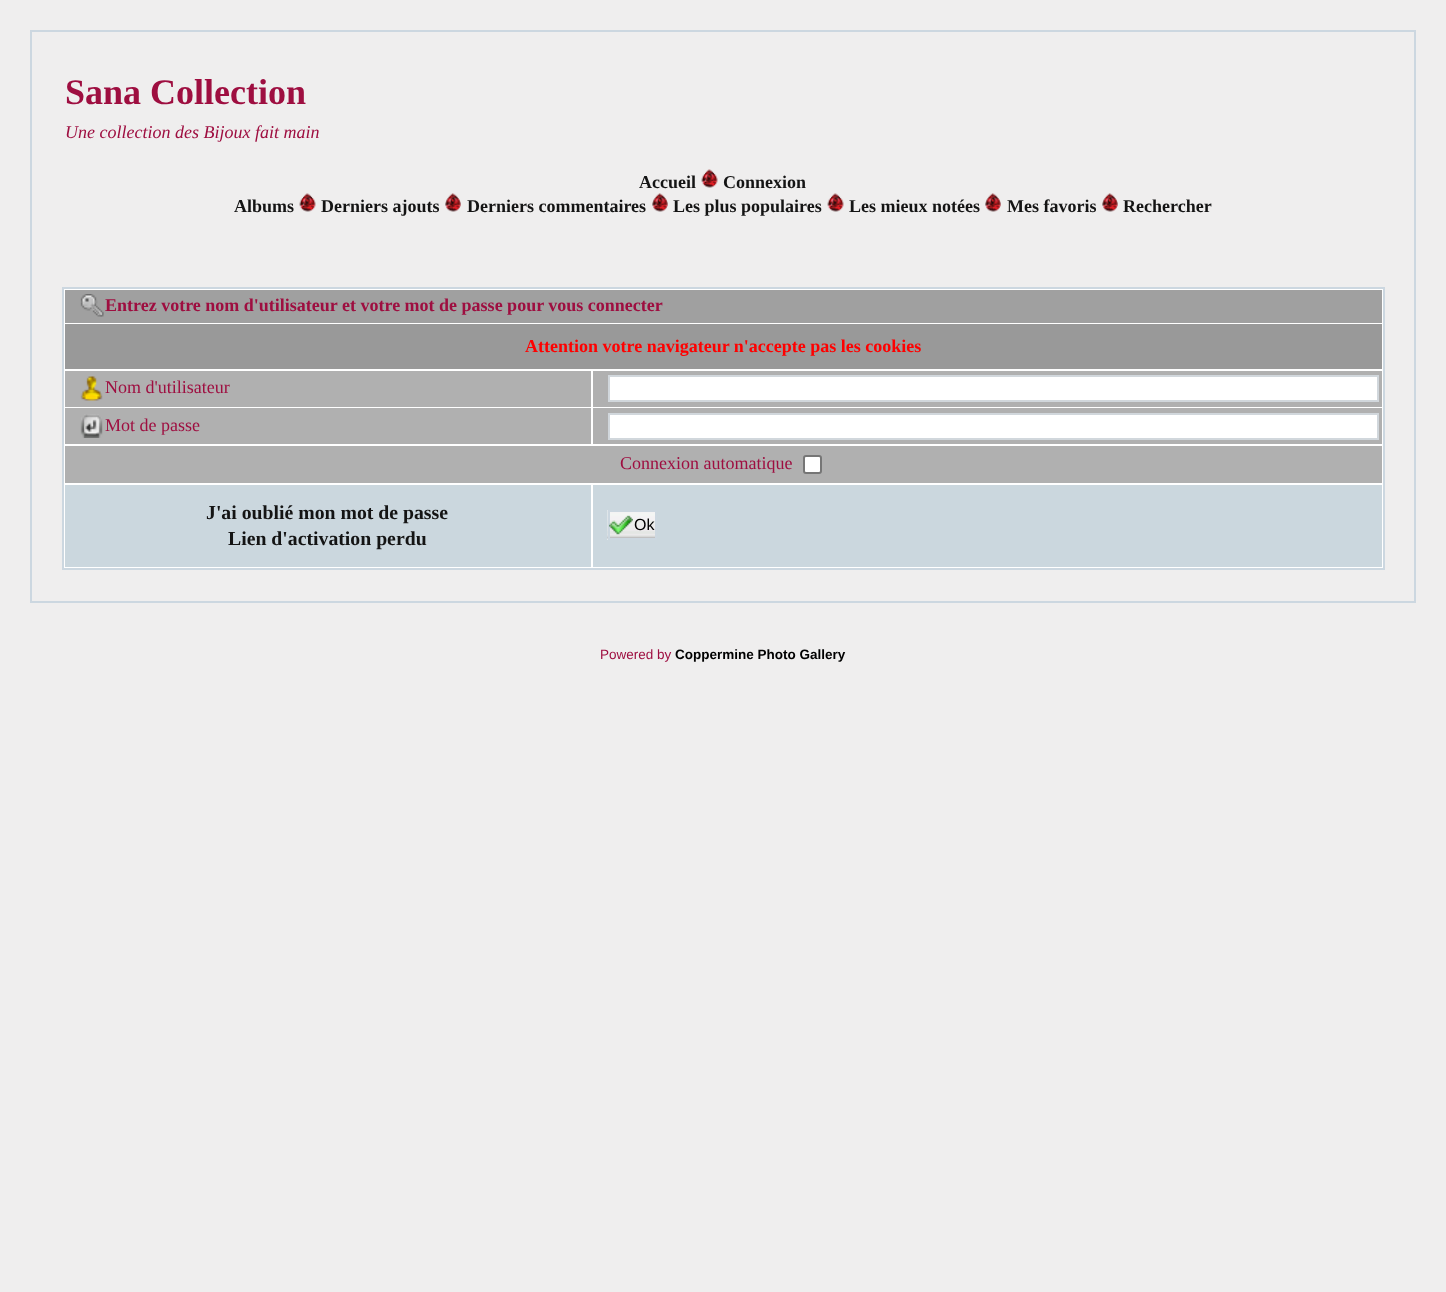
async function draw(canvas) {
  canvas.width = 1446;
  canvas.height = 1292;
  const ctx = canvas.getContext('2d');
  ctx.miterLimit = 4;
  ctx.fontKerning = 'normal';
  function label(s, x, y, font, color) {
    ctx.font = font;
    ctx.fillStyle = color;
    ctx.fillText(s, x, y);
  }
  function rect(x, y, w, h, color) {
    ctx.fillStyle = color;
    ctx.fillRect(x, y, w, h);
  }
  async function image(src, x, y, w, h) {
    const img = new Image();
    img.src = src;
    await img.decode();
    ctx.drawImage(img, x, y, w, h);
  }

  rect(0, 0, 1446, 1292, '#efeeee');
  ctx.strokeStyle = '#ccd7e0';
  ctx.lineWidth = 2;
  ctx.strokeRect(31, 31, 1384, 571);
  label('Sana Collection', 65, 104, 'bold 36px Liberation Serif', '#9e0e40');
  label('Une collection des Bijoux fait main', 65, 138, 'italic 18px Liberation Serif', '#9e0e40');
  label('Accueil', 639, 188, 'bold 18px Liberation Serif', '#141414');
  await image('assets/img1.png', 701, 169, 17, 19);
  label('Connexion', 723, 188, 'bold 18px Liberation Serif', '#141414');
  label('Albums', 234, 212, 'bold 18px Liberation Serif', '#141414');
  await image('assets/img2.png', 299, 193, 17, 19);
  label('Derniers ajouts', 321, 212, 'bold 18px Liberation Serif', '#141414');
  await image('assets/img3.png', 445, 193, 16, 19);
  label('Derniers commentaires', 467, 212, 'bold 18px Liberation Serif', '#141414');
  await image('assets/img3.png', 652, 193, 16, 19);
  label('Les plus populaires', 673, 212, 'bold 18px Liberation Serif', '#141414');
  await image('assets/img2.png', 827, 193, 17, 19);
  label('Les mieux notées', 849, 212, 'bold 18px Liberation Serif', '#141414');
  await image('assets/img4.png', 985, 193, 16, 19);
  label('Mes favoris', 1007, 212, 'bold 18px Liberation Serif', '#141414');
  await image('assets/img3.png', 1102, 193, 16, 19);
  label('Rechercher', 1123, 212, 'bold 18px Liberation Serif', '#141414');
  ctx.fillStyle = '#fff';
  ctx.beginPath();
  ctx.rect(63, 288, 1321, 281);
  ctx.fill();
  ctx.stroke();
  rect(65, 290, 1317, 33, '#a0a0a0');
  await image('assets/img5.png', 80, 294, 24, 23);
  label('Entrez votre nom d\'utilisateur et votre mot de passe pour vous connecter', 105, 311, 'bold 18px Liberation Serif', '#9e0e40');
  rect(65, 324, 1317, 45, '#999');
  label('Attention votre navigateur n\'accepte pas les cookies', 525, 352, 'bold 18px Liberation Serif', '#f00');
  rect(65, 371, 526, 36, '#b0b0b0');
  await image('assets/img6.png', 80, 376, 23, 25);
  label('Nom d\'utilisateur', 105, 393, '18px Liberation Serif', '#9e0e40');
  rect(593, 371, 789, 36, '#b0b0b0');
  ctx.fillStyle = '#fff';
  ctx.beginPath();
  ctx.rect(609, 376, 769, 25);
  ctx.fill();
  ctx.strokeStyle = '#d1d7dc';
  ctx.stroke();
  rect(65, 408, 526, 36, '#b0b0b0');
  await image('assets/img7.png', 80, 414, 23, 24);
  label('Mot de passe', 105, 431, '18px Liberation Serif', '#9e0e40');
  rect(593, 408, 789, 36, '#b0b0b0');
  ctx.fillStyle = '#fff';
  ctx.beginPath();
  ctx.rect(609, 414, 769, 25);
  ctx.fill();
  ctx.stroke();
  rect(65, 446, 1317, 37, '#b0b0b0');
  label('Connexion automatique', 620, 469, '18px Liberation Serif', '#9e0e40');
  ctx.fillStyle = '#fff';
  ctx.beginPath();
  ctx.roundRect(804, 456, 17, 17, 2);
  ctx.fill();
  ctx.strokeStyle = '#767676';
  ctx.stroke();
  rect(65, 485, 526, 82, '#cbd7de');
  label('J\'ai oublié mon mot de passe', 206, 519, 'bold 19.75px Liberation Serif', '#141414');
  label('Lien d\'activation perdu', 228, 545, 'bold 19.75px Liberation Serif', '#141414');
  rect(593, 485, 789, 82, '#cbd7de');
  await image('assets/img8.png', 607, 510, 48, 30);
  ctx.strokeStyle = '#ccd7e0';
  ctx.strokeRect(609, 511, 47, 28);
  await image('assets/img9.png', 609, 515, 24, 20);
  label('Ok', 634, 530, '16px Liberation Sans', '#000');
  label('Powered by', 600, 659, '13.5px Liberation Sans', '#9e0e40');
  label('Coppermine Photo Gallery', 675, 659, 'bold 13.5px Liberation Sans', '#000');
}

draw(document.querySelector('canvas'));
